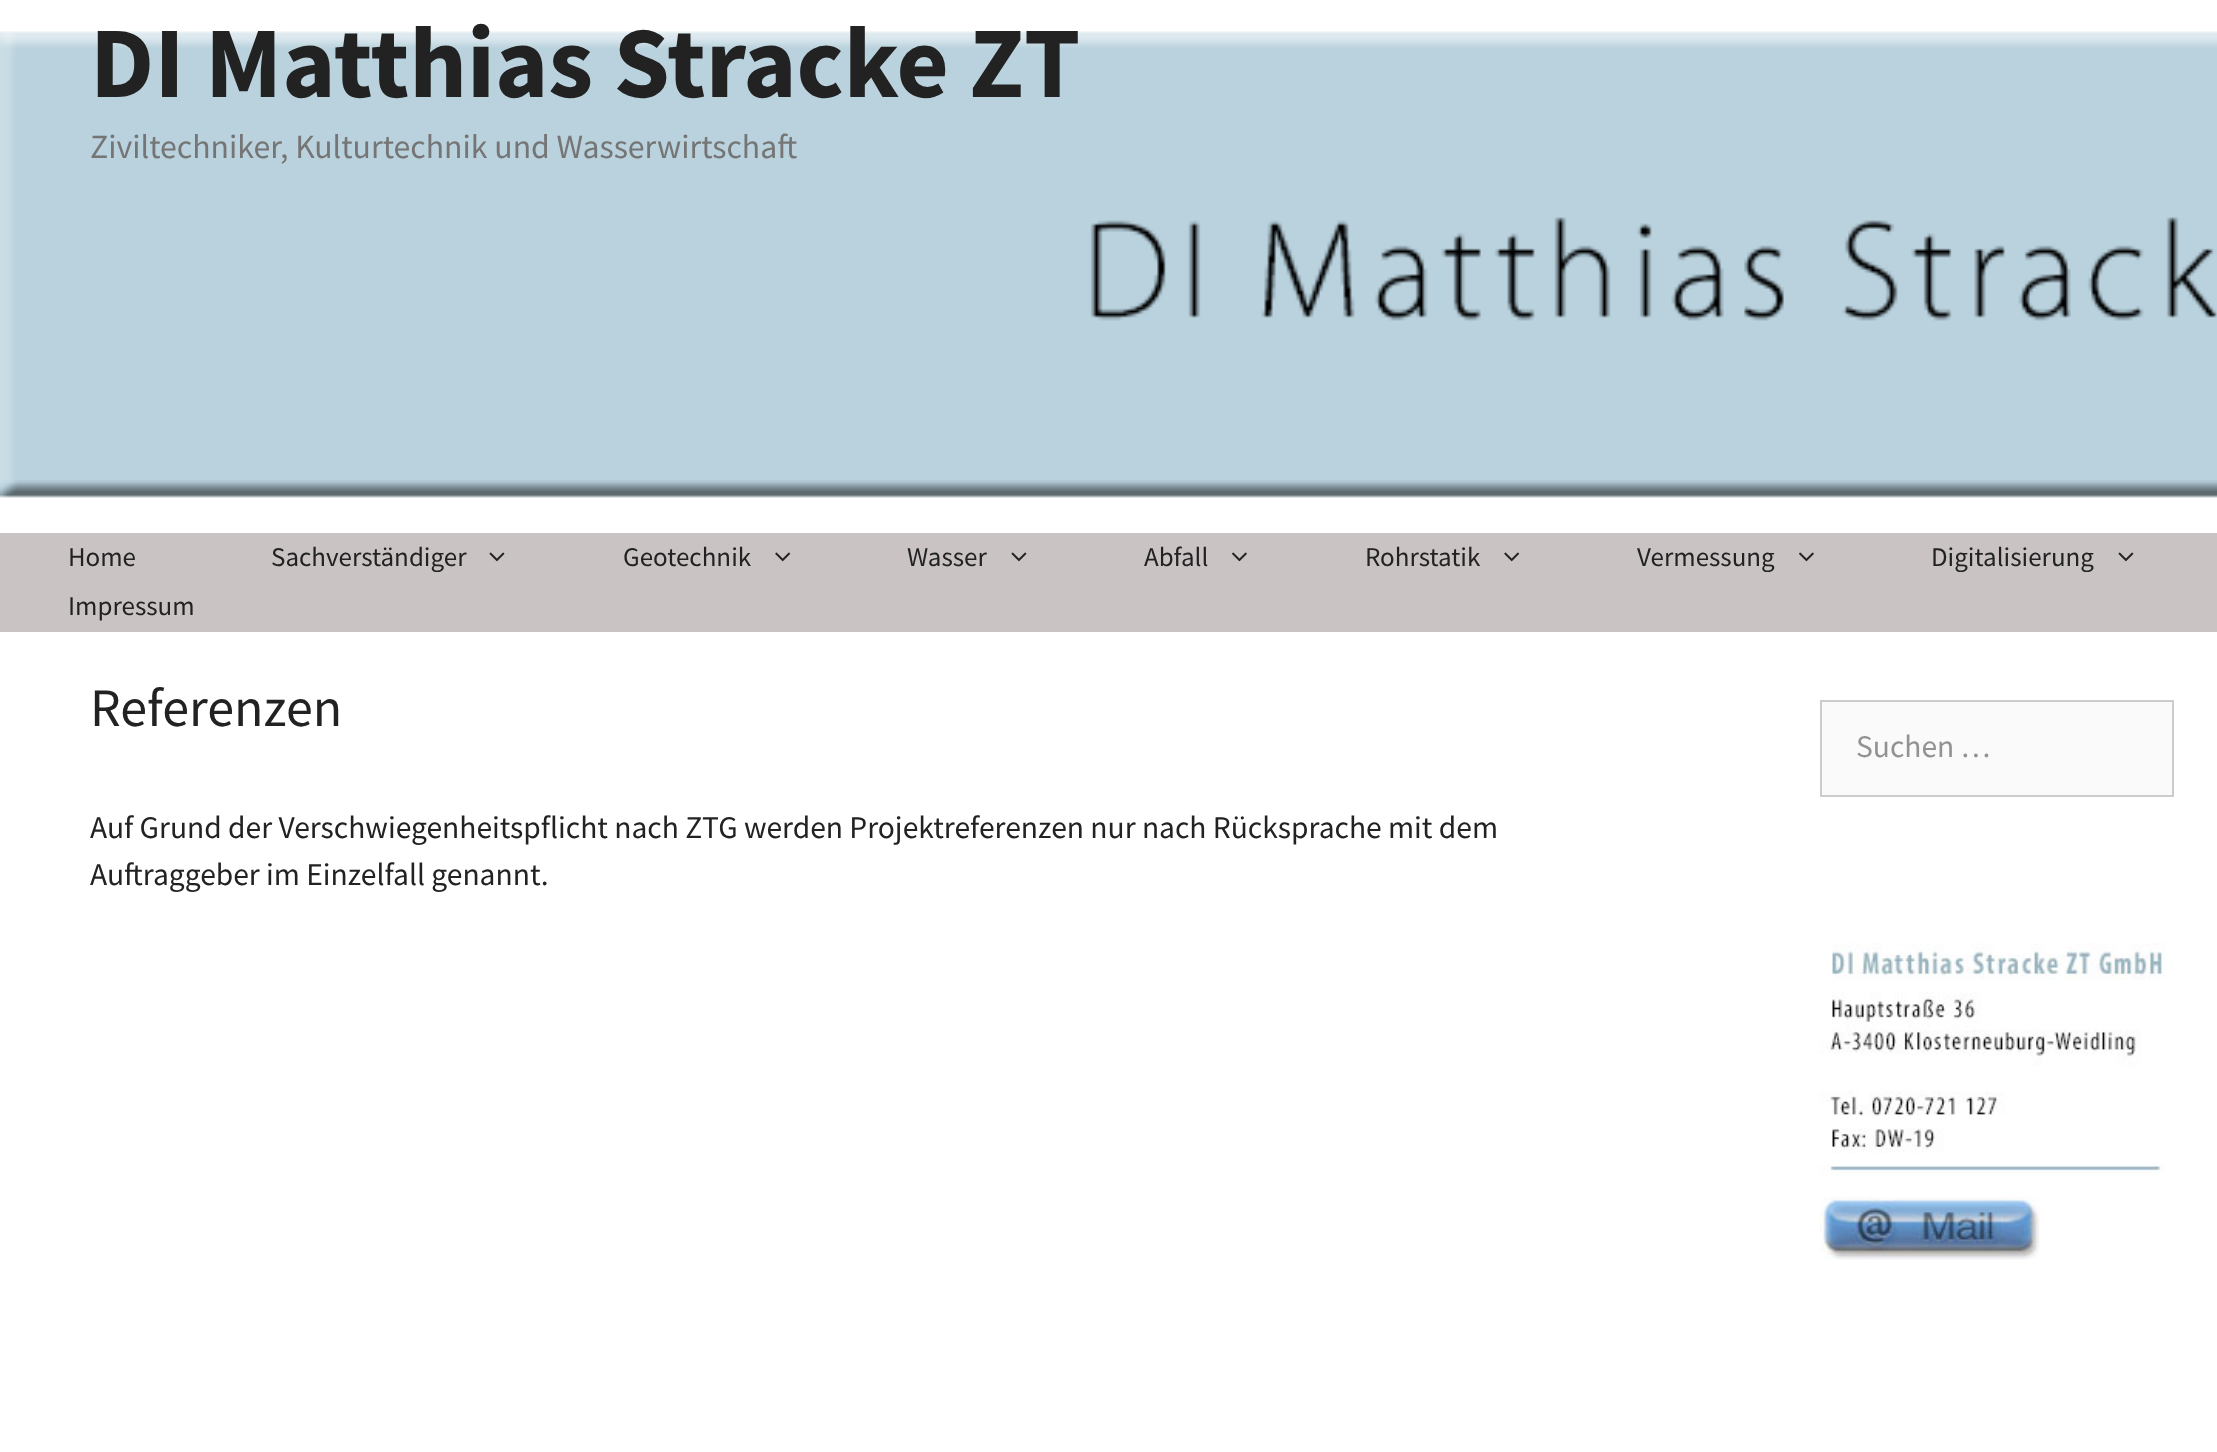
async function draw(canvas) {
  canvas.width = 2217;
  canvas.height = 1452;
  const ctx = canvas.getContext('2d');
  ctx.miterLimit = 4;
  ctx.fontKerning = 'normal';
  function label(s, x, y, font, color) {
    ctx.font = font;
    ctx.fillStyle = color;
    ctx.fillText(s, x, y);
  }
  function rect(x, y, w, h, color) {
    ctx.fillStyle = color;
    ctx.fillRect(x, y, w, h);
  }
  async function image(src, x, y, w, h) {
    const img = new Image();
    img.src = src;
    await img.decode();
    ctx.drawImage(img, x, y, w, h);
  }

  rect(0, 0, 2217, 1452, '#fff');
  await image('assets/img1.png', 0, 31, 2217, 467);
  label('DI Matthias Stracke ZT', 90, 97, 'bold 101.25px Source Sans Pro', '#222');
  label('Ziviltechniker, Kulturtechnik und Wasserwirtschaft', 90, 158, '33.75px Source Sans Pro', '#757575');
  rect(0, 533, 2217, 99, '#c9c3c4');
  label('Home', 68, 566, '27px Source Sans Pro', '#222');
  label('Sachverständiger', 271, 566, '27px Source Sans Pro', '#222');
  await image('assets/img2.png', 489, 552, 16, 10);
  label('Geotechnik', 623, 566, '27px Source Sans Pro', '#222');
  await image('assets/img3.png', 775, 552, 16, 10);
  label('Wasser', 907, 566, '27px Source Sans Pro', '#222');
  await image('assets/img2.png', 1011, 552, 16, 10);
  label('Abfall', 1144, 566, '27px Source Sans Pro', '#222');
  await image('assets/img4.png', 1232, 552, 15, 10);
  label('Rohrstatik', 1365, 566, '27px Source Sans Pro', '#222');
  await image('assets/img3.png', 1504, 552, 16, 10);
  label('Vermessung', 1637, 566, '27px Source Sans Pro', '#222');
  await image('assets/img4.png', 1799, 552, 15, 10);
  label('Digitalisierung', 1931, 566, '27px Source Sans Pro', '#222');
  await image('assets/img2.png', 2118, 552, 16, 10);
  label('Impressum', 68, 615, '27px Source Sans Pro', '#222');
  label('Referenzen', 90, 726, '54px Source Sans Pro', '#222');
  label('Auf Grund der Verschwiegenheitspflicht nach ZTG werden Projektreferenzen nur nach Rücksprache mit dem', 90, 838, '31.5px Source Sans Pro', '#222');
  label('Auftraggeber im Einzelfall genannt.', 90, 885, '31.5px Source Sans Pro', '#222');
  ctx.fillStyle = '#fafafa';
  ctx.beginPath();
  ctx.rect(1821, 701, 352, 95);
  ctx.fill();
  ctx.strokeStyle = '#ccc';
  ctx.lineWidth = 2;
  ctx.stroke();
  label('Suchen …', 1856, 757, '31.5px Source Sans Pro', '#929292');
  await image('assets/img5.png', 1820, 943, 346, 234);
  await image('assets/img6.png', 1820, 1197, 220, 63);
}

draw(document.querySelector('canvas'));
